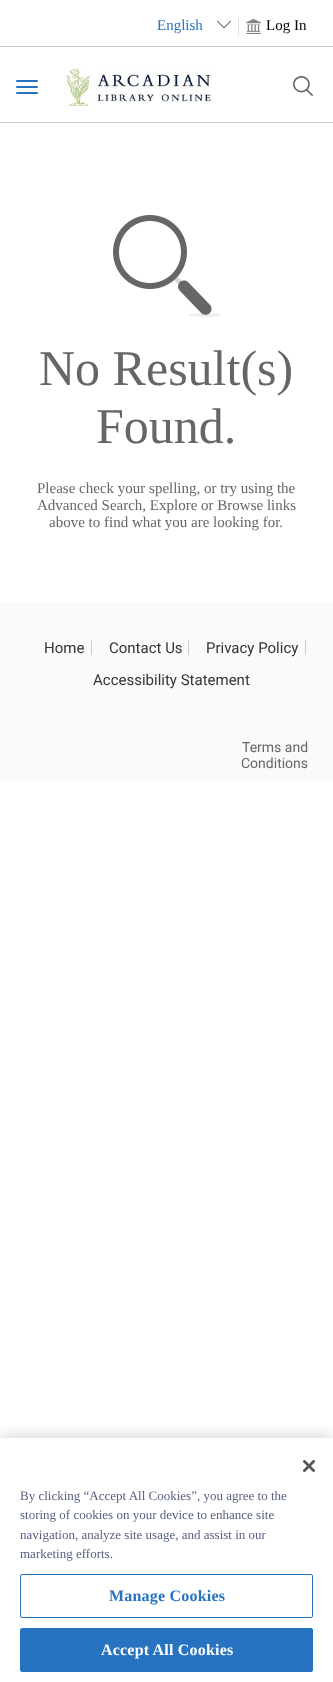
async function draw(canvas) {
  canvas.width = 333;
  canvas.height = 1682;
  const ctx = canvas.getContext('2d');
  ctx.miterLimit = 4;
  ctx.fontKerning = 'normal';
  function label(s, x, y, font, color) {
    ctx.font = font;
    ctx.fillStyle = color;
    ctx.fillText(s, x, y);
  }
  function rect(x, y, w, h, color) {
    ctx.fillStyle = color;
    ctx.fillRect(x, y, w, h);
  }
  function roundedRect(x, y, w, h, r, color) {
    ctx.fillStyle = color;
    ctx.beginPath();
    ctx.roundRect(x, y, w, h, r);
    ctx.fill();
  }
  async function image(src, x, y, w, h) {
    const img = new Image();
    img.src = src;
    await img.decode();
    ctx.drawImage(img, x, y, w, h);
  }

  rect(0, 0, 333, 1682, '#fff');
  rect(0, 46, 333, 1, '#ccc');
  label('English', 157, 30, '15px Liberation Serif', '#2773c1');
  await image('assets/img1.png', 217, 20, 14, 9);
  await image('assets/img2.png', 246, 19, 15, 15);
  label('Log In', 266, 30, '15px Liberation Serif', '#000');
  rect(238, 18, 1, 18, '#e0e0e0');
  rect(0, 122, 333, 1, '#ccc');
  roundedRect(16, 80, 22, 2, 1, '#2773c1');
  roundedRect(16, 86, 22, 2, 1, '#2773c1');
  roundedRect(16, 92, 22, 2, 1, '#2773c1');
  await image('assets/img3.png', 64, 67, 149, 40);
  await image('assets/img4.png', 293, 76, 20, 20);
  await image('assets/img5.png', 113, 215, 109, 102);
  label('No Result(s)', 39, 385, '50px Liberation Serif', '#666');
  label('Found.', 96, 443, '50px Liberation Serif', '#666');
  label('Please check your spelling, or try using the', 37, 493, '15px Liberation Serif', '#666');
  label('Advanced Search, Explore or Browse links', 37, 510, '15px Liberation Serif', '#666');
  label('above to find what you are looking for.', 49, 527, '15px Liberation Serif', '#666');
  rect(0, 602, 333, 179, '#fafafa');
  rect(91, 640, 1, 15, '#ccc');
  label('Home', 44, 653, '15px Roboto', '#333');
  rect(188, 640, 1, 15, '#ccc');
  label('Contact Us', 109, 653, '15px Roboto', '#333');
  rect(305, 640, 1, 15, '#ccc');
  label('Privacy Policy', 206, 653, '15px Roboto', '#333');
  label('Accessibility Statement', 93, 685, '15px Roboto', '#333');
  label('Terms and', 242, 752, '14px Roboto', '#666');
  label('Conditions', 241, 768, '14px Roboto', '#666');
  ctx.save();
  ctx.beginPath();
  ctx.rect(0, 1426, 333, 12);
  ctx.clip();
  ctx.fillStyle = '#00000033';
  ctx.filter = 'blur(9px)';
  ctx.beginPath();
  ctx.rect(0, 1438, 333, 244);
  ctx.fill();
  ctx.filter = 'none';
  ctx.restore();
  await image('assets/img6.png', 303, 1460, 12, 12);
  label('By clicking “Accept All Cookies”, you agree to the', 20, 1500, '13px Liberation Serif', '#575f80');
  label('storing of cookies on your device to enhance site', 20, 1519, '13px Liberation Serif', '#575f80');
  label('navigation, analyze site usage, and assist in our', 20, 1539, '13px Liberation Serif', '#575f80');
  label('marketing efforts.', 20, 1558, '13px Liberation Serif', '#575f80');
  ctx.beginPath();
  ctx.roundRect(20.5, 1574.5, 292, 43, 1.5);
  ctx.strokeStyle = '#2773c1';
  ctx.stroke();
  ctx.letterSpacing = '0.2px';
  label('Manage Cookies', 109, 1601, 'bold 16px Liberation Serif', '#2773c1');
  ctx.beginPath();
  ctx.roundRect(20.5, 1628.5, 292, 43, 1.5);
  ctx.fill();
  ctx.stroke();
  label('Accept All Cookies', 101, 1655, 'bold 16px Liberation Serif', '#fff');
}

draw(document.querySelector('canvas'));
